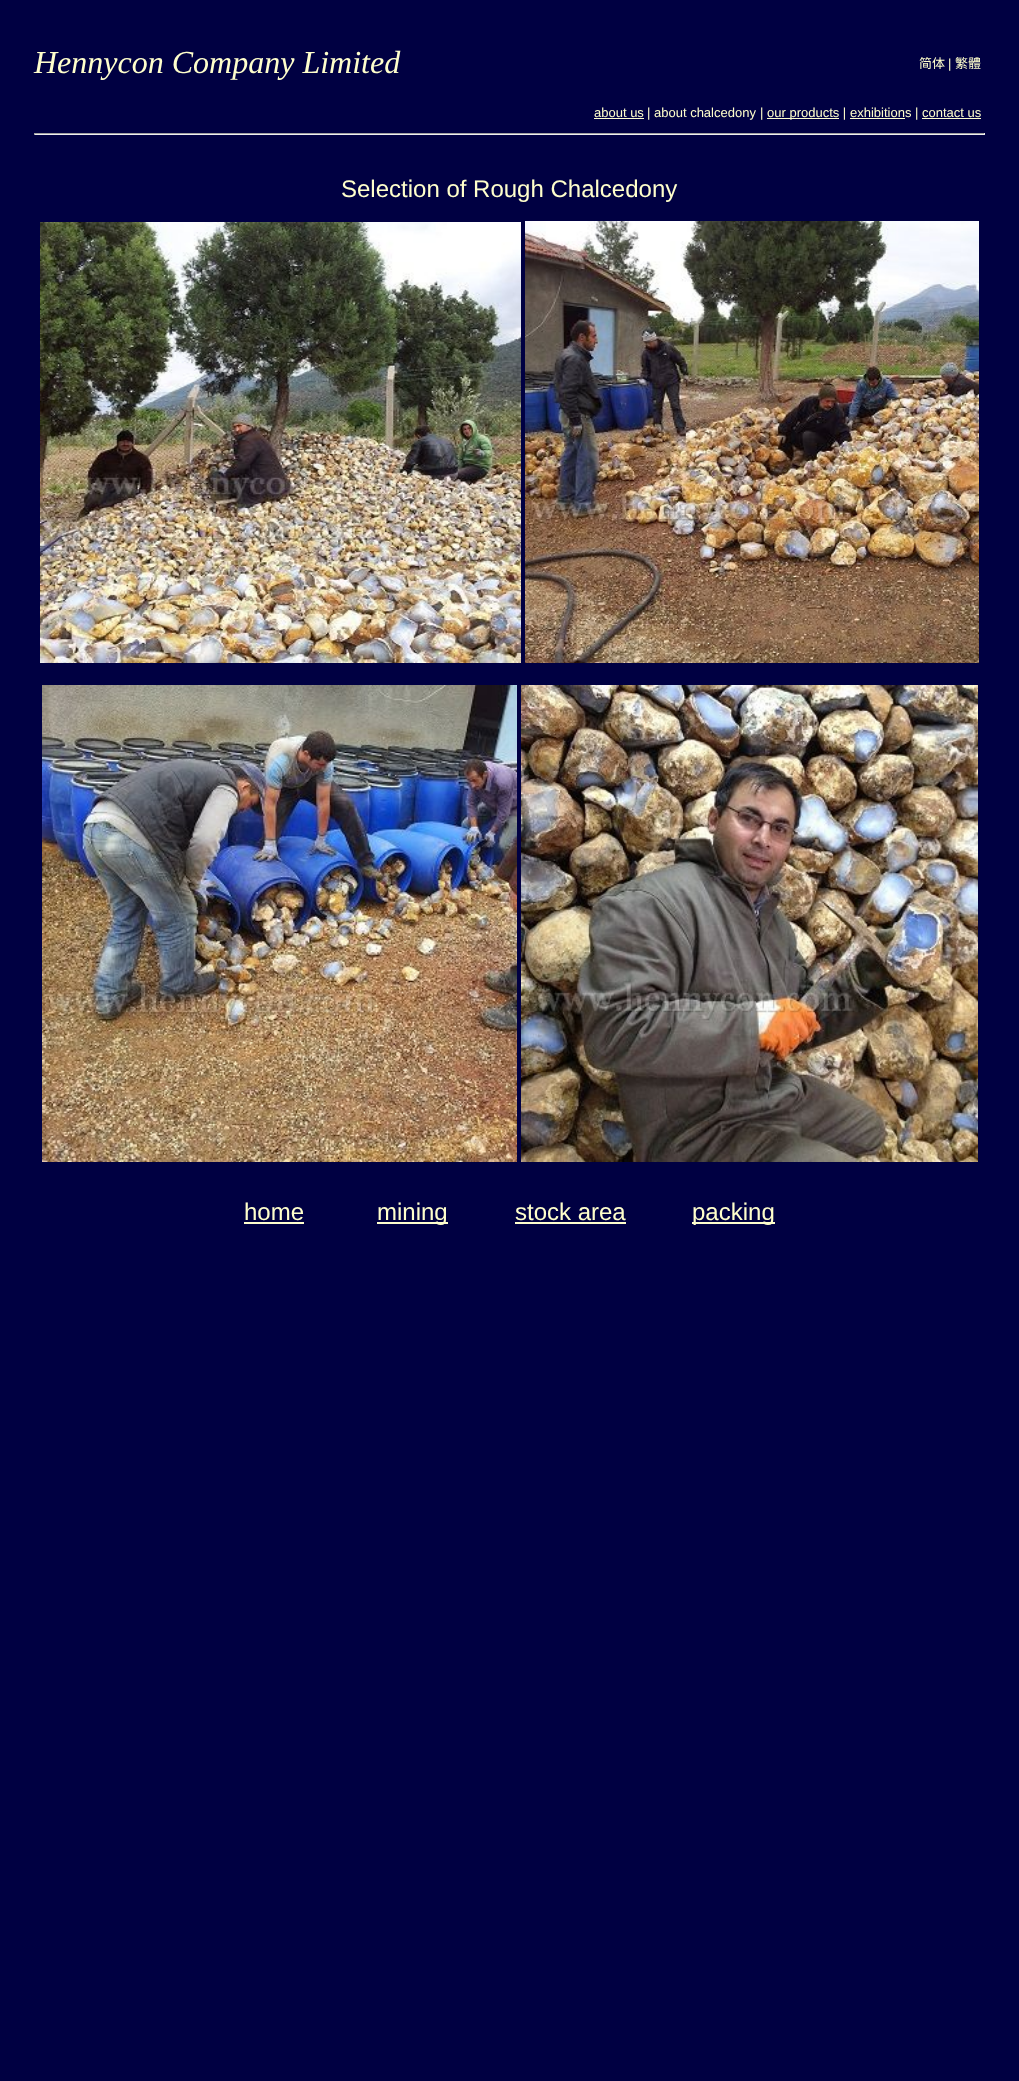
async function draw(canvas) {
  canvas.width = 1019;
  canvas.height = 2081;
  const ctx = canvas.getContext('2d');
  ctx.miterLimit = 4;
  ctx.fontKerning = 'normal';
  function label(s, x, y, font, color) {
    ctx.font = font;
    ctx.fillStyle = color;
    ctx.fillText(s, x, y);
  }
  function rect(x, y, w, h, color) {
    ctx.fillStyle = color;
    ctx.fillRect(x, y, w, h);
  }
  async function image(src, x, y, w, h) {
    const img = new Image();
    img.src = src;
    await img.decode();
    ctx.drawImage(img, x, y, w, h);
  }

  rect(0, 0, 1019, 2081, '#000042');
  label('Hennycon Company Limited', 34, 73, 'italic 32px Liberation Serif', '#ffc');
  label('简体', 919, 68, '13px Noto Sans CJK SC', '#ffc');
  label('|', 948, 68, '13px Liberation Sans', '#ffc');
  label('繁體', 955, 68, '13px Noto Sans CJK SC', '#ffc');
  label('about us', 594, 117, '13px Liberation Sans', '#ffc');
  rect(594, 118, 50, 1, '#ffffce');
  label('|', 647, 117, '13px Liberation Sans', '#ffc');
  label('about chalcedony', 654, 117, '13px Liberation Sans', '#ffc');
  label('|', 760, 117, '13px Liberation Sans', '#ffc');
  rect(767, 118, 72, 1, '#ffffce');
  label('our products |', 767, 117, '13px Liberation Sans', '#ffc');
  label('exhibition', 850, 117, '13px Liberation Sans', '#ffc');
  label('s |', 905, 117, '13px Liberation Sans', '#ffc');
  rect(850, 118, 55, 1, '#ffffce');
  label('contact us', 922, 117, '13px Liberation Sans', '#ffc');
  rect(922, 118, 59, 1, '#ffffce');
  rect(34, 133, 951, 1, '#9f9f9f');
  rect(984, 133, 1, 2, '#eee');
  rect(34, 134, 951, 1, '#eee');
  rect(34, 133, 1, 2, '#9f9f9f');
  label('Selection of Rough Chalcedony', 341, 197, '24px Liberation Sans', '#ffc');
  await image('assets/img1.png', 40, 222, 481, 441);
  await image('assets/img2.png', 525, 221, 454, 442);
  await image('assets/img3.png', 42, 685, 475, 477);
  await image('assets/img4.png', 521, 685, 457, 477);
  label('home', 244, 1220, '24px Liberation Sans', '#ffc');
  rect(244, 1222, 60, 2, '#ffffce');
  rect(377, 1222, 71, 2, '#ffffce');
  label('mining', 377, 1220, '24px Liberation Sans', '#ffc');
  label('stock area', 515, 1220, '24px Liberation Sans', '#ffc');
  rect(515, 1222, 111, 2, '#ffffce');
  rect(692, 1222, 83, 2, '#ffffce');
  label('packing', 692, 1220, '24px Liberation Sans', '#ffc');
}

draw(document.querySelector('canvas'));
